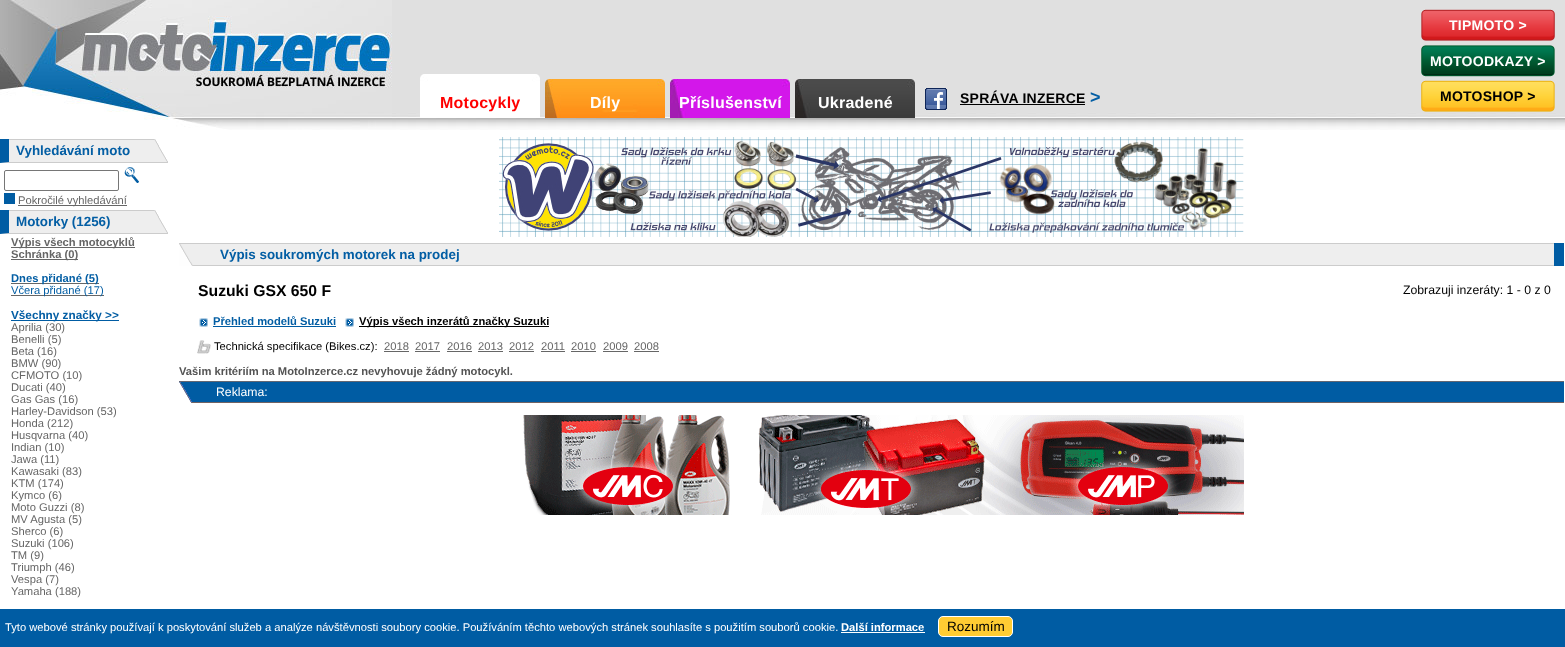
async function draw(canvas) {
  canvas.width = 1565;
  canvas.height = 647;
  const ctx = canvas.getContext('2d');
  ctx.miterLimit = 4;
  ctx.fontKerning = 'normal';
  function label(s, x, y, font, color) {
    ctx.font = font;
    ctx.fillStyle = color;
    ctx.fillText(s, x, y);
  }
  function rect(x, y, w, h, color) {
    ctx.fillStyle = color;
    ctx.fillRect(x, y, w, h);
  }
  async function image(src, x, y, w, h) {
    const img = new Image();
    img.src = src;
    await img.decode();
    ctx.drawImage(img, x, y, w, h);
  }
  let path;

  rect(0, 0, 1565, 647, '#fff');
  await image('assets/img1.png', 392, 0, 1173, 130);
  await image('assets/img2.png', 0, 0, 392, 130);
  await image('assets/img3.png', 1421, 9, 134, 32);
  ctx.letterSpacing = '0.25px';
  label('TIPMOTO >', 1449, 30, 'bold 14px Liberation Sans', '#fff');
  await image('assets/img4.png', 1421, 45, 134, 32);
  label('MOTOODKAZY >', 1430, 66, 'bold 14px Liberation Sans', '#fff');
  await image('assets/img5.png', 420, 74, 120, 44);
  label('Motocykly', 440, 108, 'bold 16px Liberation Sans', '#f00');
  await image('assets/img6.png', 545, 79, 120, 39);
  label('Díly', 590, 108, 'bold 16px Liberation Sans', '#fff');
  await image('assets/img7.png', 670, 79, 120, 39);
  label('Příslušenství', 679, 108, 'bold 16px Liberation Sans', '#fff');
  await image('assets/img8.png', 795, 79, 120, 39);
  label('Ukradené', 818, 108, 'bold 16px Liberation Sans', '#fff');
  await image('assets/img9.png', 925, 88, 22, 22);
  label('SPRÁVA INZERCE', 960, 103, 'bold 14px Liberation Sans', '#000');
  rect(960, 104, 125, 1, '#000');
  label('>', 1090, 103, 'bold 18px Liberation Sans', '#035ea4');
  await image('assets/img10.png', 1421, 80, 134, 32);
  label('MOTOSHOP >', 1440, 101, 'bold 14px Liberation Sans', '#000');
  rect(0, 140, 166, 23, '#eee');
  rect(9, 139, 145, 1, '#ccc');
  await image('assets/img11.png', 154, 139, 14, 23);
  path = new Path2D('M168 163H0L9 162H168Z');
  ctx.fill(path);
  ctx.fillStyle = '#005ca3';
  path = new Path2D('M0 163V139H9V162Z');
  ctx.fill(path);
  ctx.letterSpacing = '0px';
  label('Vyhledávání moto', 16, 155, 'bold 13.4px Liberation Sans', '#035ea4');
  ctx.beginPath();
  ctx.roundRect(4.5, 170.5, 114, 20, 1.5);
  ctx.strokeStyle = '#767676';
  ctx.stroke();
  await image('assets/img12.png', 124, 167, 15, 16);
  rect(4, 193, 11, 11, '#005ca2');
  rect(18, 205, 109, 1, '#666');
  label('Pokročilé vyhledávání', 18, 204, '11.2px Liberation Sans', '#666');
  rect(0, 211, 166, 23, '#eee');
  rect(9, 210, 145, 1, '#ccc');
  await image('assets/img11.png', 154, 210, 14, 23);
  path = new Path2D('M168 234H0L9 233H168Z');
  ctx.fill(path);
  ctx.fillStyle = '#005ca3';
  path = new Path2D('M0 234V210H9V233Z');
  ctx.fill(path);
  label('Motorky (1256)', 16, 226, 'bold 13.4px Liberation Sans', '#035ea4');
  rect(11, 247, 124, 1, '#666');
  label('Výpis všech motocyklů', 11, 246, 'bold 11.2px Liberation Sans', '#666');
  rect(11, 259, 67, 1, '#666');
  label('Schránka (0)', 11, 258, 'bold 11.2px Liberation Sans', '#666');
  rect(11, 283, 88, 1, '#666');
  label('Dnes přidané (5)', 11, 282, 'bold 11.2px Liberation Sans', '#035ea4');
  rect(11, 295, 93, 1, '#666');
  label('Včera přidané (17)', 11, 294, '11.2px Liberation Sans', '#035ea4');
  rect(11, 320, 108, 1, '#005ca3');
  label('Všechny značky >>', 11, 319, 'bold 11.75px Liberation Sans', '#035ea4');
  label('Aprilia (30)', 11, 331, '11.2px Liberation Sans', '#666');
  label('Benelli (5)', 11, 343, '11.2px Liberation Sans', '#666');
  label('Beta (16)', 11, 355, '11.2px Liberation Sans', '#666');
  label('BMW (90)', 11, 367, '11.2px Liberation Sans', '#666');
  label('CFMOTO (10)', 11, 379, '11.2px Liberation Sans', '#666');
  label('Ducati (40)', 11, 391, '11.2px Liberation Sans', '#666');
  label('Gas Gas (16)', 11, 403, '11.2px Liberation Sans', '#666');
  label('Harley-Davidson (53)', 11, 415, '11.2px Liberation Sans', '#666');
  label('Honda (212)', 11, 427, '11.2px Liberation Sans', '#666');
  label('Husqvarna (40)', 11, 439, '11.2px Liberation Sans', '#666');
  label('Indian (10)', 11, 451, '11.2px Liberation Sans', '#666');
  label('Jawa (11)', 11, 463, '11.2px Liberation Sans', '#666');
  label('Kawasaki (83)', 11, 475, '11.2px Liberation Sans', '#666');
  label('KTM (174)', 11, 487, '11.2px Liberation Sans', '#666');
  label('Kymco (6)', 11, 499, '11.2px Liberation Sans', '#666');
  label('Moto Guzzi (8)', 11, 511, '11.2px Liberation Sans', '#666');
  label('MV Agusta (5)', 11, 523, '11.2px Liberation Sans', '#666');
  label('Sherco (6)', 11, 535, '11.2px Liberation Sans', '#666');
  label('Suzuki (106)', 11, 547, '11.2px Liberation Sans', '#666');
  label('TM (9)', 11, 559, '11.2px Liberation Sans', '#666');
  label('Triumph (46)', 11, 571, '11.2px Liberation Sans', '#666');
  label('Vespa (7)', 11, 583, '11.2px Liberation Sans', '#666');
  label('Yamaha (188)', 11, 595, '11.2px Liberation Sans', '#666');
  await image('assets/img13.png', 499, 137, 745, 100);
  rect(181, 244, 1373, 21, '#eee');
  rect(193, 265, 1361, 1, '#ccc');
  await image('assets/img14.png', 179, 243, 1375, 23);
  rect(1554, 243, 10, 23, '#005ca3');
  label('Výpis soukromých motorek na prodej', 220, 259, 'bold 13.4px Liberation Sans', '#035ea4');
  label('Suzuki GSX 650 F', 198, 296, 'bold 15.75px Liberation Sans', '#000');
  label('Zobrazuji inzeráty: 1 - 0 z 0', 1403, 294, '12.25px Liberation Sans', '#000');
  await image('assets/img15.png', 199, 318, 9, 9);
  label('Přehled modelů Suzuki', 213, 325, 'bold 11.2px Liberation Sans', '#035ea4');
  rect(213, 326, 123, 1, '#005ca3');
  await image('assets/img15.png', 345, 318, 9, 9);
  rect(359, 326, 190, 1, '#000');
  label('Výpis všech inzerátů značky Suzuki', 359, 325, 'bold 11.2px Liberation Sans', '#000');
  await image('assets/img16.png', 197, 340, 14, 14);
  label('Technická specifikace (Bikes.cz):', 214, 350, '11.2px Liberation Sans', '#000');
  label('2018', 384, 350, '11.2px Liberation Sans', '#666');
  rect(384, 351, 25, 1, '#666');
  label('2017', 415, 350, '11.2px Liberation Sans', '#666');
  rect(415, 351, 25, 1, '#666');
  label('2016', 447, 350, '11.2px Liberation Sans', '#666');
  rect(447, 351, 25, 1, '#666');
  label('2013', 478, 350, '11.2px Liberation Sans', '#666');
  rect(478, 351, 25, 1, '#666');
  label('2012', 509, 350, '11.2px Liberation Sans', '#666');
  rect(509, 351, 25, 1, '#666');
  label('2011', 541, 350, '11.2px Liberation Sans', '#666');
  rect(541, 351, 24, 1, '#666');
  label('2010', 571, 350, '11.2px Liberation Sans', '#666');
  rect(571, 351, 25, 1, '#666');
  label('2009', 603, 350, '11.2px Liberation Sans', '#666');
  rect(603, 351, 25, 1, '#666');
  label('2008', 634, 350, '11.2px Liberation Sans', '#666');
  rect(634, 351, 25, 1, '#666');
  label('Vašim kritériím na MotoInzerce.cz nevyhovuje žádný motocykl.', 179, 375, 'bold 11.2px Liberation Sans', '#545454');
  rect(181, 382, 1383, 20, '#005ca3');
  rect(192, 402, 1372, 1, '#726363');
  await image('assets/img17.png', 179, 381, 1385, 22);
  label('Reklama:', 216, 396, '12.25px Liberation Sans', '#fff');
  await image('assets/img18.png', 523, 415, 721, 100);
  rect(0, 609, 1565, 38, '#005ca3');
  label('Tyto webové stránky používají k poskytování služeb a analýze návštěvnosti soubory cookie. Používáním těchto webových stránek souhlasíte s použitím souborů cookie.', 5, 631, '11.2px Liberation Sans', '#fff');
  label('Další informace', 841, 631, 'bold 11.2px Liberation Sans', '#fff');
  rect(841, 632, 84, 1, '#fff');
  ctx.fillStyle = '#fc3';
  ctx.beginPath();
  ctx.roundRect(938.5, 616.5, 74, 20, 4.5);
  ctx.fill();
  ctx.strokeStyle = '#fff';
  ctx.stroke();
  label('Rozumím', 947, 631, '13.5px Liberation Sans', '#000');
}

draw(document.querySelector('canvas'));
